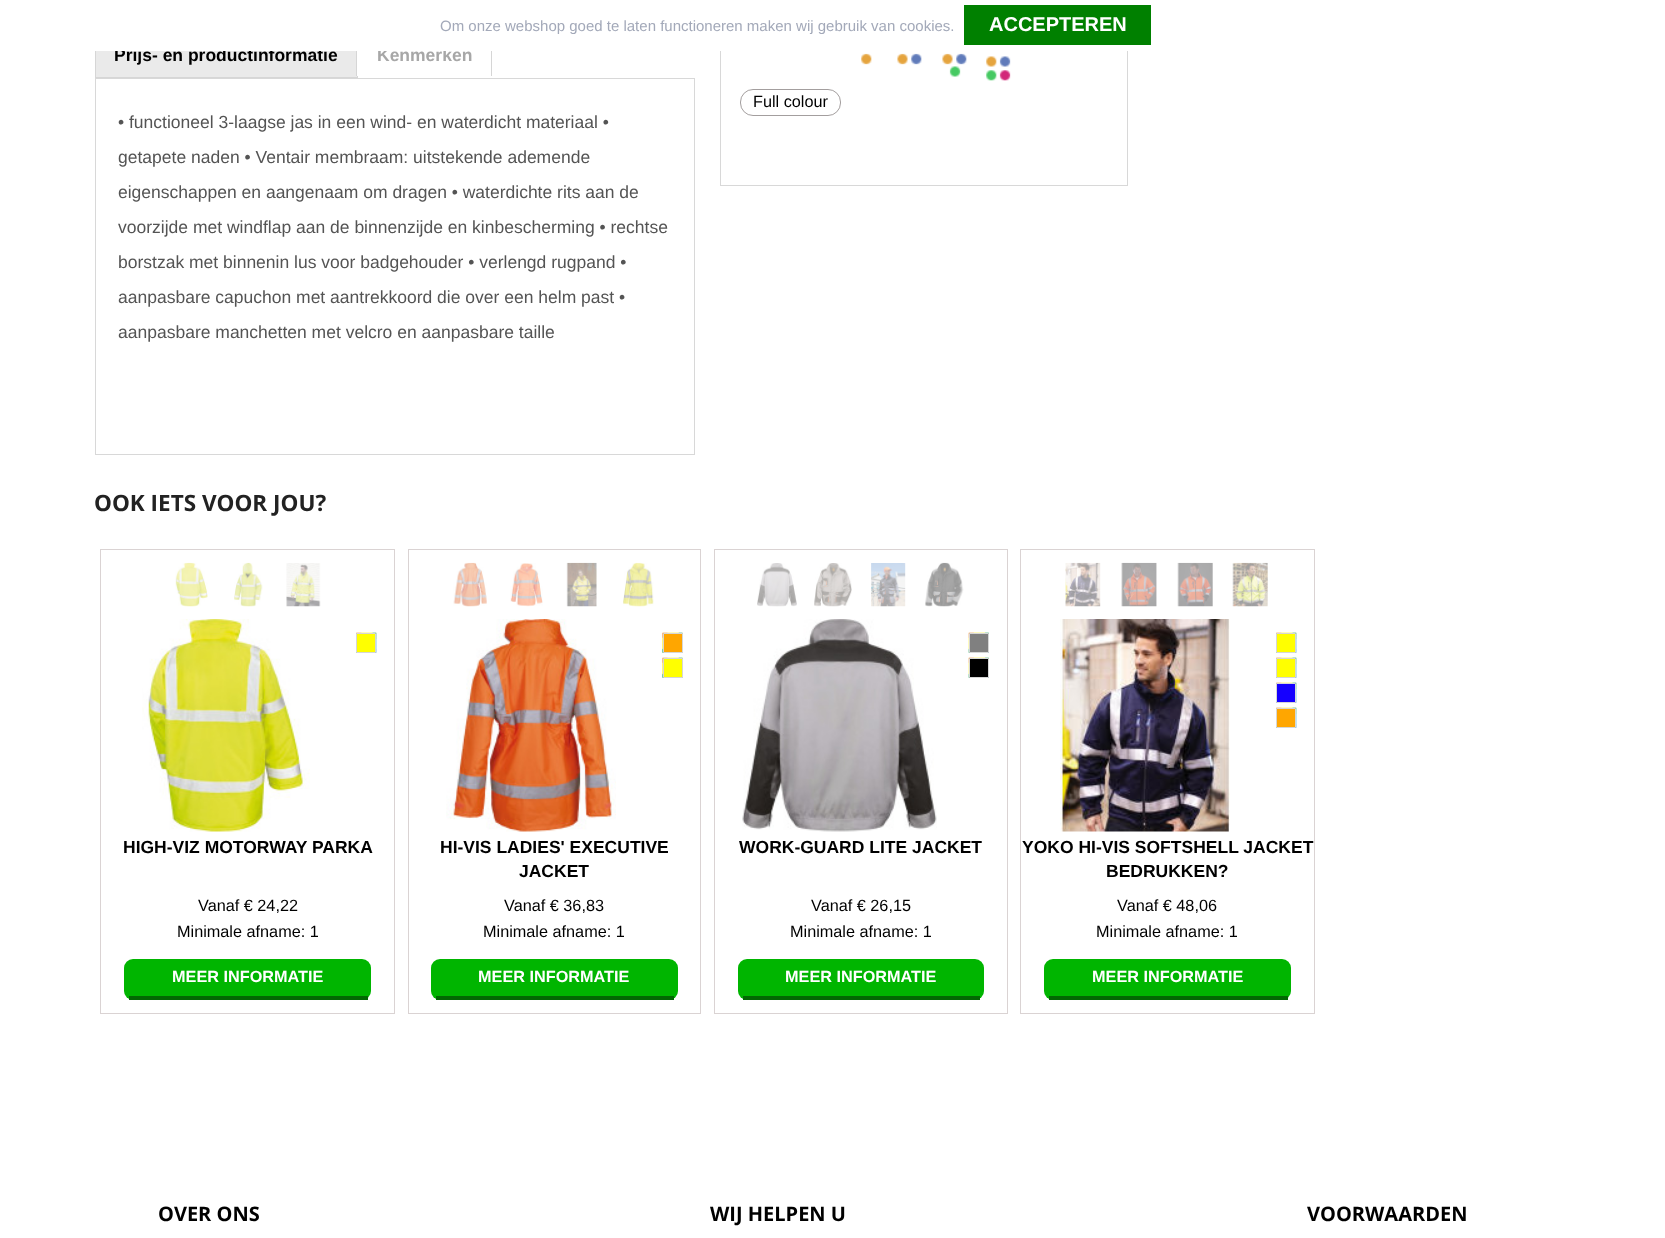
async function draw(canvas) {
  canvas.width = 1665;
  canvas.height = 1238;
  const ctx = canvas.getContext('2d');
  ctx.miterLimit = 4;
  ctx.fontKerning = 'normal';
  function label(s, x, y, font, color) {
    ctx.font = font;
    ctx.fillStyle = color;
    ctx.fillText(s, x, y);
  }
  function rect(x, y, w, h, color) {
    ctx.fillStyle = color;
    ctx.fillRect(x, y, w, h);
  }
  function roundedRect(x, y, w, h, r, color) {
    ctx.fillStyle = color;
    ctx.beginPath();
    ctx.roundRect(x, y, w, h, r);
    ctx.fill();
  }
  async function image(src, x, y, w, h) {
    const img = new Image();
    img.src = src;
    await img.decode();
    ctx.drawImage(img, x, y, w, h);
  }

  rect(0, 0, 1665, 1238, '#fff');
  rect(96, 51, 261, 26, '#eaeaea');
  ctx.strokeStyle = '#d6d6d6';
  ctx.strokeRect(95.5, 29.5, 262, 48);
  label('Prijs- en productinformatie', 114, 61, 'bold 17.5px Liberation Sans', '#000');
  label('Kenmerken', 377, 61, 'bold 17.5px Liberation Sans', '#a7a7a7');
  ctx.strokeStyle = '#d8d8d8';
  ctx.strokeRect(720.5, -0.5, 407, 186);
  rect(95, 0, 1033, 51, '#fff');
  label('Om onze webshop goed te laten functioneren maken wij gebruik van cookies.', 440, 31, '15px Liberation Sans', '#a3a9b9');
  rect(964, 5, 187, 40, '#008000');
  label('ACCEPTEREN', 989, 31, 'bold 20px Liberation Sans', '#fff');
  rect(357, 51, 1, 25, '#fff');
  rect(491, 51, 1, 25, '#d6d6d6');
  rect(356, 51, 1, 25, '#d6d6d6');
  ctx.strokeRect(95.5, 78.5, 599, 376);
  label('• functioneel 3-laagse jas in een wind- en waterdicht materiaal •', 118, 128, '17.5px Liberation Sans', '#545454');
  label('getapete naden • Ventair membraam: uitstekende ademende', 118, 163, '17.5px Liberation Sans', '#545454');
  label('eigenschappen en aangenaam om dragen • waterdichte rits aan de', 118, 198, '17.5px Liberation Sans', '#545454');
  label('voorzijde met windflap aan de binnenzijde en kinbescherming • rechtse', 118, 233, '17.5px Liberation Sans', '#545454');
  label('borstzak met binnenin lus voor badgehouder • verlengd rugpand •', 118, 268, '17.5px Liberation Sans', '#545454');
  label('aanpasbare capuchon met aantrekkoord die over een helm past •', 118, 303, '17.5px Liberation Sans', '#545454');
  label('aanpasbare manchetten met velcro en aanpasbare taille', 118, 338, '17.5px Liberation Sans', '#545454');
  await image('assets/img1.png', 861, 53, 11, 12);
  await image('assets/img2.png', 897, 53, 25, 12);
  await image('assets/img3.png', 942, 53, 25, 24);
  await image('assets/img4.png', 986, 56, 25, 25);
  ctx.beginPath();
  ctx.roundRect(740.5, 89.5, 100, 26, 12.5);
  ctx.strokeStyle = '#a39e9e';
  ctx.stroke();
  label('Full colour', 753, 107, '16.25px Liberation Sans', '#000');
  label('OOK IETS VOOR JOU?', 94, 511, 'bold 22.5px Open Sans', '#222');
  ctx.strokeStyle = '#dad3d3';
  ctx.strokeRect(100.5, 549.5, 294, 464);
  await image('assets/img5.png', 175, 562, 33, 45);
  await image('assets/img6.png', 234, 562, 29, 45);
  await image('assets/img7.png', 286, 563, 35, 44);
  await image('assets/img8.png', 142, 619, 168, 213);
  await image('assets/img9.png', 356, 632, 21, 21);
  ctx.fillStyle = '#ff0';
  ctx.beginPath();
  ctx.rect(356.5, 633.5, 19, 19);
  ctx.fill();
  ctx.strokeStyle = '#d6d6d6';
  ctx.stroke();
  label('HIGH-VIZ MOTORWAY PARKA', 123, 853, 'bold 17.5px Liberation Sans', '#000');
  label('Vanaf € 24,22', 198, 911, '16.25px Liberation Sans', '#000');
  label('Minimale afname: 1', 177, 937, '16.25px Liberation Sans', '#000');
  roundedRect(124, 959, 247, 41, 9, '#00b500');
  rect(129, 996, 239, 4, '#026802');
  label('MEER INFORMATIE', 172, 982, 'bold 16.25px Liberation Sans', '#fff');
  ctx.strokeStyle = '#dad3d3';
  ctx.strokeRect(408.5, 549.5, 292, 464);
  await image('assets/img10.png', 453, 562, 34, 45);
  await image('assets/img11.png', 510, 563, 33, 44);
  await image('assets/img12.png', 566, 562, 31, 45);
  await image('assets/img13.png', 623, 562, 31, 45);
  await image('assets/img14.png', 446, 619, 170, 213);
  await image('assets/img15.png', 662, 632, 21, 21);
  ctx.fillStyle = '#ffa600';
  ctx.beginPath();
  ctx.rect(663.5, 633.5, 19, 19);
  ctx.fill();
  ctx.strokeStyle = '#d6d6d6';
  ctx.stroke();
  await image('assets/img15.png', 662, 657, 21, 21);
  ctx.fillStyle = '#ff0';
  ctx.beginPath();
  ctx.rect(663.5, 658.5, 19, 19);
  ctx.fill();
  ctx.stroke();
  label('HI-VIS LADIES\' EXECUTIVE', 440, 853, 'bold 17.5px Liberation Sans', '#000');
  label('JACKET', 519, 877, 'bold 17.5px Liberation Sans', '#000');
  label('Vanaf € 36,83', 504, 911, '16.25px Liberation Sans', '#000');
  label('Minimale afname: 1', 483, 937, '16.25px Liberation Sans', '#000');
  roundedRect(431, 959, 247, 41, 9, '#00b500');
  rect(436, 996, 238, 4, '#026802');
  label('MEER INFORMATIE', 478, 982, 'bold 16.25px Liberation Sans', '#fff');
  ctx.strokeStyle = '#dad3d3';
  ctx.strokeRect(714.5, 549.5, 293, 464);
  await image('assets/img16.png', 757, 563, 40, 44);
  await image('assets/img17.png', 814, 563, 38, 44);
  await image('assets/img18.png', 871, 563, 35, 44);
  await image('assets/img19.png', 925, 562, 39, 45);
  await image('assets/img20.png', 742, 619, 195, 213);
  await image('assets/img21.png', 968, 632, 21, 21);
  ctx.fillStyle = '#808080';
  ctx.beginPath();
  ctx.rect(969.5, 633.5, 19, 19);
  ctx.fill();
  ctx.strokeStyle = '#d6d6d6';
  ctx.stroke();
  await image('assets/img21.png', 968, 657, 21, 21);
  ctx.fillStyle = '#000';
  ctx.beginPath();
  ctx.rect(969.5, 658.5, 19, 19);
  ctx.fill();
  ctx.stroke();
  label('WORK-GUARD LITE JACKET', 739, 853, 'bold 17.5px Liberation Sans', '#000');
  label('Vanaf € 26,15', 811, 911, '16.25px Liberation Sans', '#000');
  label('Minimale afname: 1', 790, 937, '16.25px Liberation Sans', '#000');
  roundedRect(738, 959, 246, 41, 9, '#00b500');
  rect(743, 996, 237, 4, '#026802');
  label('MEER INFORMATIE', 785, 982, 'bold 16.25px Liberation Sans', '#fff');
  ctx.strokeStyle = '#dad3d3';
  ctx.strokeRect(1020.5, 549.5, 294, 464);
  await image('assets/img22.png', 1065, 562, 36, 45);
  await image('assets/img23.png', 1121, 562, 36, 45);
  await image('assets/img24.png', 1177, 562, 36, 45);
  await image('assets/img25.png', 1232, 562, 36, 45);
  await image('assets/img26.png', 1060, 619, 170, 213);
  await image('assets/img9.png', 1276, 632, 21, 21);
  ctx.fillStyle = '#ff0';
  ctx.beginPath();
  ctx.rect(1276.5, 633.5, 19, 19);
  ctx.fill();
  ctx.strokeStyle = '#d6d6d6';
  ctx.stroke();
  await image('assets/img9.png', 1276, 657, 21, 21);
  ctx.beginPath();
  ctx.rect(1276.5, 658.5, 19, 19);
  ctx.fill();
  ctx.stroke();
  await image('assets/img9.png', 1276, 682, 21, 21);
  ctx.fillStyle = '#1500ff';
  ctx.beginPath();
  ctx.rect(1276.5, 683.5, 19, 19);
  ctx.fill();
  ctx.stroke();
  await image('assets/img9.png', 1276, 707, 21, 21);
  ctx.fillStyle = '#ffa600';
  ctx.beginPath();
  ctx.rect(1276.5, 708.5, 19, 19);
  ctx.fill();
  ctx.stroke();
  label('YOKO HI-VIS SOFTSHELL JACKET', 1022, 853, 'bold 17.5px Liberation Sans', '#000');
  label('BEDRUKKEN?', 1106, 877, 'bold 17.5px Liberation Sans', '#000');
  label('Vanaf € 48,06', 1117, 911, '16.25px Liberation Sans', '#000');
  label('Minimale afname: 1', 1096, 937, '16.25px Liberation Sans', '#000');
  roundedRect(1044, 959, 247, 41, 9, '#00b500');
  rect(1049, 996, 239, 4, '#026802');
  label('MEER INFORMATIE', 1092, 982, 'bold 16.25px Liberation Sans', '#fff');
  label('OVER ONS', 158, 1221, 'bold 20px Open Sans', '#000');
  label('WIJ HELPEN U', 710, 1221, 'bold 20px Open Sans', '#000');
  label('VOORWAARDEN', 1307, 1221, 'bold 20px Open Sans', '#000');
}

draw(document.querySelector('canvas'));
